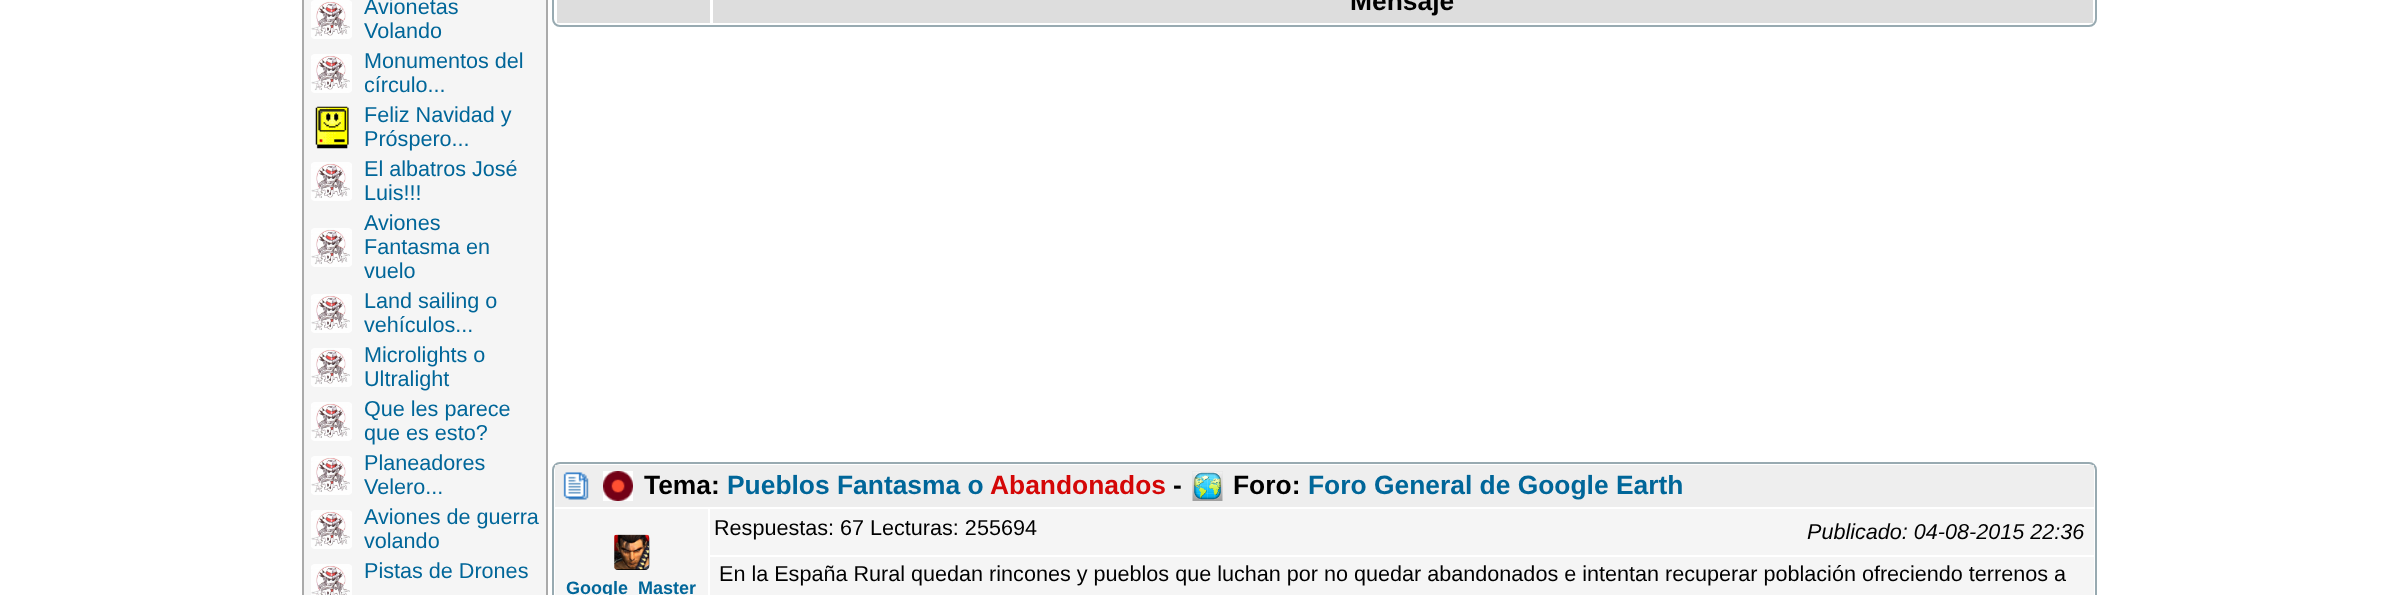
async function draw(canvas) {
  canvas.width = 2392;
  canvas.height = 595;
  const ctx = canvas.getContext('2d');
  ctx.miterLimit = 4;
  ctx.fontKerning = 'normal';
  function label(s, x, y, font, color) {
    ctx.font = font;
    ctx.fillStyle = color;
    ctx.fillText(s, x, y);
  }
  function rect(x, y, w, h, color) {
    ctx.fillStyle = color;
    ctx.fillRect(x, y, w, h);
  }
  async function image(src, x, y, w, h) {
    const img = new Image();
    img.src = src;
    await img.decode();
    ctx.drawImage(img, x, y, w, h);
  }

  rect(0, 0, 2392, 595, '#fff');
  ctx.fillStyle = '#f5f5f5';
  ctx.beginPath();
  ctx.rect(303, -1, 244, 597);
  ctx.fill();
  ctx.strokeStyle = '#aaa';
  ctx.lineWidth = 2;
  ctx.stroke();
  await image('assets/img1.png', 311, 0, 41, 39);
  label('Avionetas', 364, 14, '21.6px Liberation Sans', '#069');
  label('Volando', 364, 38, '21.6px Liberation Sans', '#069');
  await image('assets/img1.png', 311, 54, 41, 39);
  label('Monumentos del', 364, 68, '21.6px Liberation Sans', '#069');
  label('círculo...', 364, 92, '21.6px Liberation Sans', '#069');
  await image('assets/img2.png', 315, 106, 34, 43);
  label('Feliz Navidad y', 364, 122, '21.6px Liberation Sans', '#069');
  label('Próspero...', 364, 146, '21.6px Liberation Sans', '#069');
  await image('assets/img1.png', 311, 162, 41, 39);
  label('El albatros José', 364, 176, '21.6px Liberation Sans', '#069');
  label('Luis!!!', 364, 200, '21.6px Liberation Sans', '#069');
  await image('assets/img1.png', 311, 228, 41, 39);
  label('Aviones', 364, 230, '21.6px Liberation Sans', '#069');
  label('Fantasma en', 364, 254, '21.6px Liberation Sans', '#069');
  label('vuelo', 364, 278, '21.6px Liberation Sans', '#069');
  await image('assets/img1.png', 311, 294, 41, 39);
  label('Land sailing o', 364, 308, '21.6px Liberation Sans', '#069');
  label('vehículos...', 364, 332, '21.6px Liberation Sans', '#069');
  await image('assets/img1.png', 311, 348, 41, 39);
  label('Microlights o', 364, 362, '21.6px Liberation Sans', '#069');
  label('Ultralight', 364, 386, '21.6px Liberation Sans', '#069');
  await image('assets/img1.png', 311, 402, 41, 39);
  label('Que les parece', 364, 416, '21.6px Liberation Sans', '#069');
  label('que es esto?', 364, 440, '21.6px Liberation Sans', '#069');
  await image('assets/img1.png', 311, 456, 41, 39);
  label('Planeadores', 364, 470, '21.6px Liberation Sans', '#069');
  label('Velero...', 364, 494, '21.6px Liberation Sans', '#069');
  await image('assets/img1.png', 311, 510, 41, 39);
  label('Aviones de guerra', 364, 524, '21.6px Liberation Sans', '#069');
  label('volando', 364, 548, '21.6px Liberation Sans', '#069');
  await image('assets/img3.png', 311, 564, 41, 31);
  label('Pistas de Drones', 364, 578, '21.6px Liberation Sans', '#069');
  ctx.beginPath();
  ctx.roundRect(553, -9, 1543, 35, 7);
  ctx.strokeStyle = '#98aab1';
  ctx.stroke();
  rect(557, 0, 153, 23, '#ddd');
  rect(713, 0, 1380, 23, '#ddd');
  label('Mensaje', 1350, 10, 'bold 26.4px Liberation Sans', '#000');
  ctx.beginPath();
  ctx.roundRect(553, 463, 1543, 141, 7);
  ctx.stroke();
  rect(555, 465, 1539, 42, '#eee');
  await image('assets/img4.png', 563, 472, 26, 28);
  await image('assets/img5.png', 603, 471, 30, 30);
  label('Tema:', 644, 494, 'bold 26.4px Liberation Sans', '#000');
  label('Pueblos Fantasma o', 727, 494, 'bold 26.4px Liberation Sans', '#069');
  label('Abandonados', 990, 494, 'bold 26.4px Liberation Sans', '#d40707');
  label('-', 1173, 494, 'bold 26.4px Liberation Sans', '#000');
  await image('assets/img6.png', 1192, 471, 31, 30);
  label('Foro:', 1233, 494, 'bold 26.4px Liberation Sans', '#000');
  label('Foro General de Google Earth', 1308, 494, 'bold 26.4px Liberation Sans', '#069');
  rect(710, 509, 1384, 46, '#f5f5f5');
  label('Respuestas: 67 Lecturas: 255694', 714, 535, '21.6px Liberation Sans', '#000');
  label('Publicado: 04-08-2015 22:36', 1807, 539, 'italic 21.6px Liberation Sans', '#000');
  rect(555, 509, 153, 86, '#f5f5f5');
  await image('assets/img7.png', 614, 534, 36, 36);
  label('Google_Master', 566, 594, 'bold 18px Liberation Sans', '#069');
  rect(710, 557, 1384, 38, '#f5f5f5');
  label('En la España Rural quedan rincones y pueblos que luchan por no quedar abandonados e intentan recuperar población ofreciendo terrenos a', 719, 581, '21.6px Liberation Sans', '#000');
}

draw(document.querySelector('canvas'));
